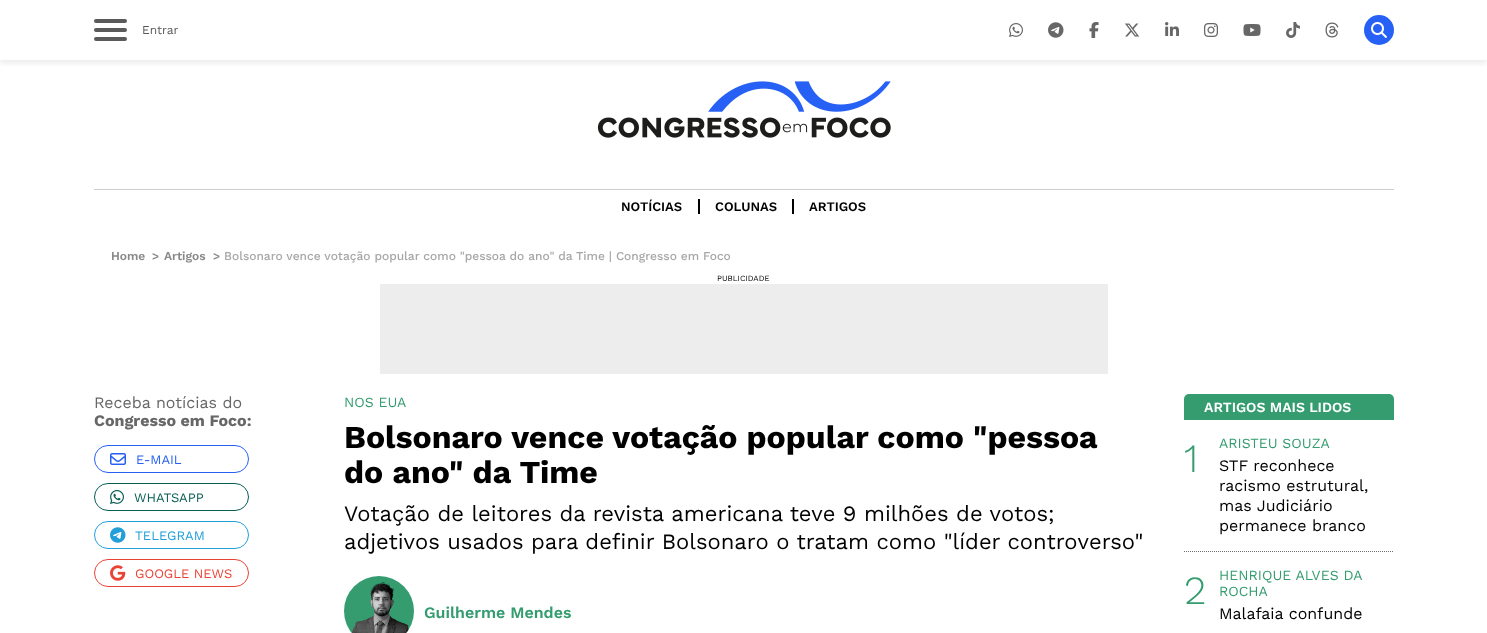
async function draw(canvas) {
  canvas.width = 1487;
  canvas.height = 633;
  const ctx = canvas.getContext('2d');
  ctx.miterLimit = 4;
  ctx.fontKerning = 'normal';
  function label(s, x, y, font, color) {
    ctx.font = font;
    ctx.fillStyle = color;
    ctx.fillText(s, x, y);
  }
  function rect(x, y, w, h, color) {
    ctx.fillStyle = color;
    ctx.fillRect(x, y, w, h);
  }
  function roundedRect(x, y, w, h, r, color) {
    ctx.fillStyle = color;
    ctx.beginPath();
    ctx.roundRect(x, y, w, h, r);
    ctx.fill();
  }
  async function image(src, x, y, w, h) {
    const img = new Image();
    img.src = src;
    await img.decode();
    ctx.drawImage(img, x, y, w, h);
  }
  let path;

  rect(0, 0, 1487, 633, '#fff');
  ctx.save();
  ctx.beginPath();
  ctx.rect(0, 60, 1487, 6);
  ctx.clip();
  ctx.fillStyle = '#7a7a7a29';
  ctx.filter = 'blur(3px)';
  ctx.beginPath();
  ctx.rect(0, 3, 1487, 60);
  ctx.fill();
  ctx.filter = 'none';
  ctx.restore();
  roundedRect(94, 19, 33, 4, 2, '#5a5a5a');
  roundedRect(94, 28, 33, 4, 2, '#5a5a5a');
  roundedRect(94, 37, 33, 4, 2, '#5a5a5a');
  label('Entrar', 142, 34, '12px Work Sans', '#5a5a5a');
  await image('assets/img1.png', 1009, 23, 14, 14);
  await image('assets/img2.png', 1048, 22, 16, 16);
  await image('assets/img3.png', 1089, 22, 10, 16);
  await image('assets/img4.png', 1125, 23, 15, 14);
  await image('assets/img5.png', 1165, 22, 14, 14);
  await image('assets/img6.png', 1204, 23, 14, 14);
  await image('assets/img7.png', 1243, 24, 18, 12);
  await image('assets/img8.png', 1286, 22, 14, 16);
  await image('assets/img9.png', 1325, 22, 14, 16);
  ctx.fillStyle = '#2660f5';
  ctx.beginPath();
  ctx.arc(1379, 30, 15, 0, 2 * Math.PI);
  ctx.fill();
  await image('assets/img10.png', 1371, 22, 16, 16);
  await image('assets/img11.png', 597, 81, 294, 57);
  rect(94, 189, 1300, 1, '#cecece');
  label('NOTÍCIAS', 621, 211, '600 13px Work Sans', '#000');
  rect(698, 199, 2, 15, '#000');
  label('COLUNAS', 715, 211, '600 13px Work Sans', '#000');
  rect(792, 199, 2, 15, '#000');
  label('ARTIGOS', 809, 211, '600 13px Work Sans', '#000');
  label('Home', 111, 260, '600 12px Work Sans', '#8a8a8a');
  label('>', 152, 260, '600 12px Work Sans', '#8a8a8a');
  label('Artigos', 164, 260, '600 12px Work Sans', '#8a8a8a');
  label('>', 213, 260, '600 12px Work Sans', '#8a8a8a');
  label('Bolsonaro vence votação popular como "pessoa do ano" da Time | Congresso em Foco', 224, 260, '500 12px Work Sans', '#a7a7a7');
  label('PUBLICIDADE', 717, 281, '8px Work Sans', '#000');
  rect(380, 284, 728, 90, '#ededed');
  label('Receba notícias do', 94, 408, '16px Work Sans', '#676767');
  label('Congresso em Foco:', 94, 426, 'bold 16px Work Sans', '#676767');
  ctx.beginPath();
  ctx.roundRect(94.5, 445.5, 154, 27, 13.5);
  ctx.strokeStyle = '#2660f5';
  ctx.stroke();
  await image('assets/img12.png', 110, 453, 16, 12);
  label('E-MAIL', 136, 464, '13px Work Sans', '#2660f5');
  ctx.beginPath();
  ctx.roundRect(94.5, 483.5, 154, 27, 13.5);
  ctx.strokeStyle = '#075e54';
  ctx.stroke();
  await image('assets/img13.png', 110, 490, 14, 14);
  label('WHATSAPP', 134, 502, '13px Work Sans', '#075e54');
  ctx.beginPath();
  ctx.roundRect(94.5, 521.5, 154, 27, 13.5);
  ctx.strokeStyle = '#229ed9';
  ctx.stroke();
  await image('assets/img14.png', 110, 527, 16, 16);
  label('TELEGRAM', 135, 540, '13px Work Sans', '#229ed9');
  ctx.beginPath();
  ctx.roundRect(94.5, 559.5, 154, 27, 13.5);
  ctx.strokeStyle = '#ea4335';
  ctx.stroke();
  await image('assets/img15.png', 110, 565, 16, 16);
  label('GOOGLE NEWS', 135, 578, '13px Work Sans', '#ea4335');
  label('NOS EUA', 344, 407, '14px Work Sans', '#349c6f');
  label('Bolsonaro vence votação popular como "pessoa', 344, 448, 'bold 32px Work Sans', '#000');
  label('do ano" da Time', 344, 483, 'bold 32px Work Sans', '#000');
  label('Votação de leitores da revista americana teve 9 milhões de votos;', 344, 521, '22px Work Sans', '#000');
  label('adjetivos usados para definir Bolsonaro o tratam como "líder controverso"', 344, 549, '22px Work Sans', '#000');
  await image('assets/img16.png', 344, 576, 70, 57);
  label('Guilherme Mendes', 424, 618, '600 16px Work Sans', '#349c6f');
  ctx.beginPath();
  ctx.roundRect(1184, 394, 210, 26, [5, 5, 0, 0]);
  ctx.fill();
  label('ARTIGOS MAIS LIDOS', 1204, 412, '600 14px Work Sans', '#fff');
  path = new Path2D('M1184 551.5H1394');
  ctx.strokeStyle = '#707070';
  ctx.setLineDash([1, 1]);
  ctx.stroke(path);
  label('1', 1184, 472, '300 40px Work Sans', '#349c6f');
  label('ARISTEU SOUZA', 1219, 448, '14px Work Sans', '#349c6f');
  label('STF reconhece', 1219, 471, '16px Work Sans', '#000');
  label('racismo estrutural,', 1219, 491, '16px Work Sans', '#000');
  label('mas Judiciário', 1219, 511, '16px Work Sans', '#000');
  label('permanece branco', 1219, 531, '16px Work Sans', '#000');
  label('2', 1184, 604, '300 40px Work Sans', '#349c6f');
  label('HENRIQUE ALVES DA', 1219, 580, '14px Work Sans', '#349c6f');
  label('ROCHA', 1219, 596, '14px Work Sans', '#349c6f');
  label('Malafaia confunde', 1219, 619, '16px Work Sans', '#000');
}

draw(document.querySelector('canvas'));
